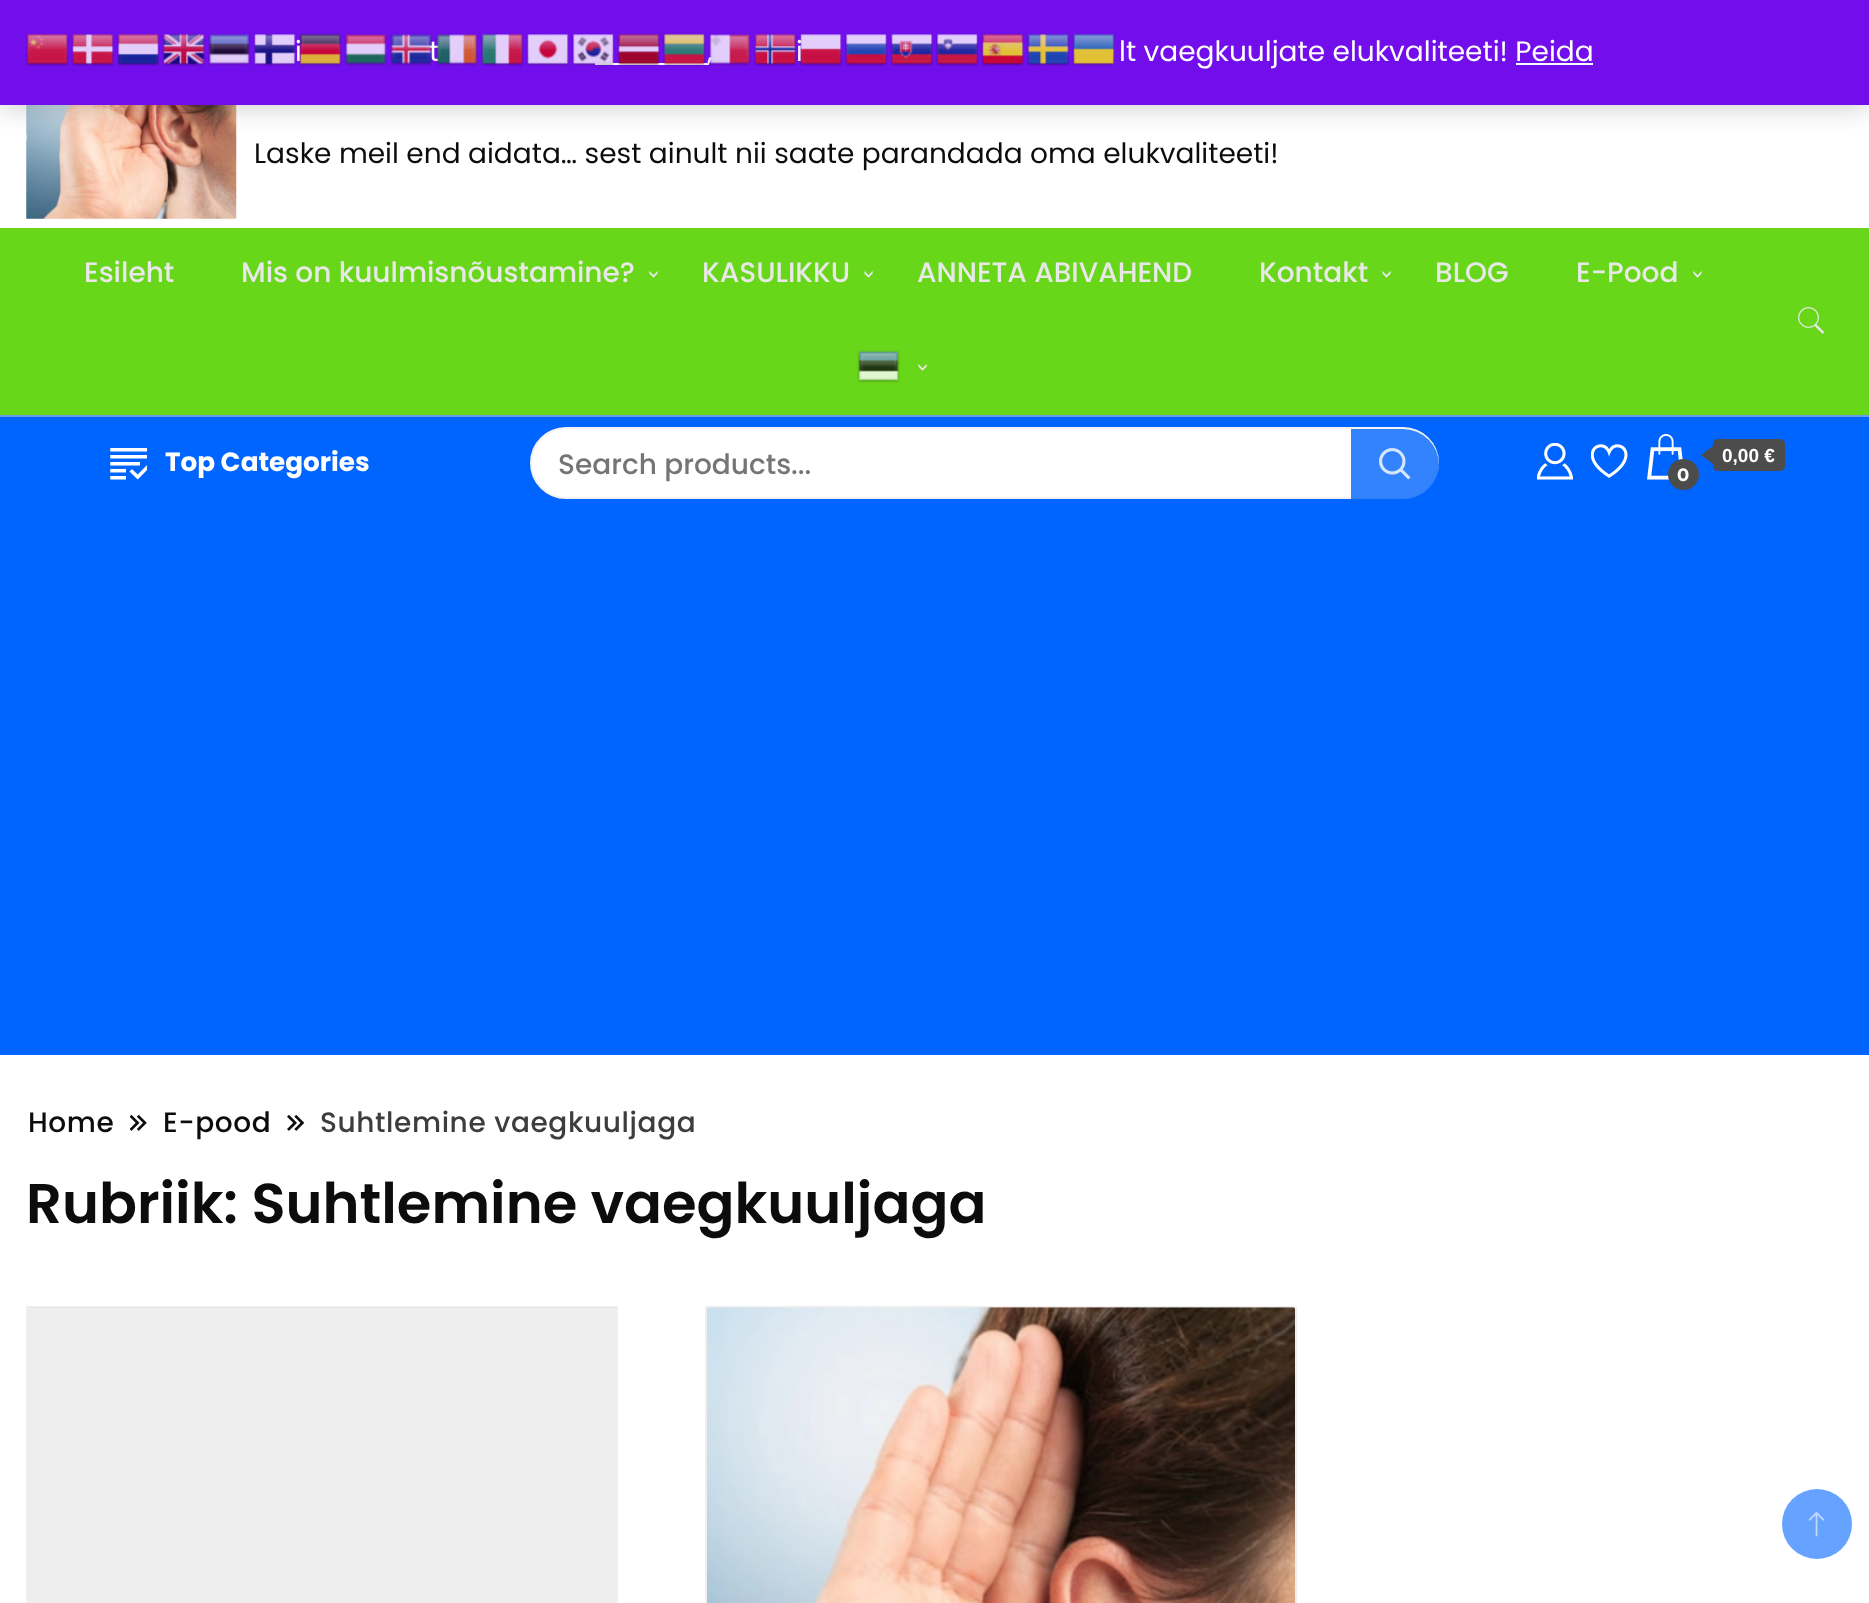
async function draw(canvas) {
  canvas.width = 1869;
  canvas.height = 1603;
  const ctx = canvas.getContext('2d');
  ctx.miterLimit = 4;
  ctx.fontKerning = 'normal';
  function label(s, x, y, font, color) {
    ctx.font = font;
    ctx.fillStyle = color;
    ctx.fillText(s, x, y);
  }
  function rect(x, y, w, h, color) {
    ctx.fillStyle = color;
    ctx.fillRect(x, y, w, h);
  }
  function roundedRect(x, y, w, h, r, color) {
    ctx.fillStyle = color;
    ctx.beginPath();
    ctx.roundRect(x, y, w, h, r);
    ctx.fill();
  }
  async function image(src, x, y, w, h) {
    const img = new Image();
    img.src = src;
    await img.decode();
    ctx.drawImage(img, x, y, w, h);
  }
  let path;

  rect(0, 0, 1869, 1603, '#fff');
  await image('assets/img25.png', 26, 105, 211, 114);
  ctx.fillStyle = '#00000033';
  ctx.filter = 'blur(14px)';
  ctx.beginPath();
  ctx.rect(0, 2, 1869, 105);
  ctx.fill();
  ctx.filter = 'none';
  rect(0, 0, 1869, 105, '#720eec');
  await image('assets/img1.png', 26, 33, 43, 33);
  await image('assets/img2.png', 71, 33, 43, 33);
  await image('assets/img3.png', 117, 33, 43, 33);
  await image('assets/img4.png', 162, 33, 43, 33);
  await image('assets/img5.png', 208, 33, 43, 33);
  await image('assets/img6.png', 253, 33, 43, 33);
  label('i', 295, 61, '28px Poppins', '#fff');
  await image('assets/img7.png', 299, 33, 43, 33);
  await image('assets/img8.png', 344, 33, 43, 33);
  label('t', 429, 61, '28px Poppins', '#fff');
  await image('assets/img9.png', 390, 33, 43, 33);
  await image('assets/img10.png', 435, 33, 43, 33);
  await image('assets/img11.png', 481, 33, 43, 33);
  await image('assets/img12.png', 526, 33, 43, 33);
  rect(595, 63, 112, 2, '#fcfbfe');
  await image('assets/img13.png', 572, 33, 43, 33);
  await image('assets/img14.png', 617, 33, 43, 33);
  await image('assets/img15.png', 663, 33, 43, 33);
  label(',', 707, 61, '28px Poppins', '#fff');
  await image('assets/img16.png', 708, 33, 43, 33);
  await image('assets/img17.png', 754, 33, 43, 33);
  label('i', 796, 61, '28px Poppins', '#fff');
  await image('assets/img18.png', 799, 33, 43, 33);
  await image('assets/img19.png', 845, 33, 43, 33);
  await image('assets/img20.png', 890, 33, 43, 33);
  await image('assets/img21.png', 936, 33, 43, 33);
  await image('assets/img22.png', 981, 33, 43, 33);
  await image('assets/img23.png', 1027, 33, 43, 33);
  await image('assets/img24.png', 1072, 33, 43, 33);
  label('lt vaegkuuljate elukvaliteeti! Peida', 1119, 61, '28px Poppins', '#fff');
  rect(1516, 63, 77, 2, '#fcfbfe');
  label('Laske meil end aidata… sest ainult nii saate parandada oma elukvaliteeti!', 254, 163, '28px Poppins', '#0c0c0c');
  rect(0, 228, 1869, 187, '#68d619');
  label('Esileht', 84, 282, '500 28px Poppins', '#e8e8e8');
  label('Mis on kuulmisnõustamine?', 241, 282, '500 28px Poppins', '#e8e8e8');
  ctx.font = '500 18px Poppins';
  ctx.save();
  ctx.translate(647, 269);
  ctx.rotate(90 * Math.PI / 180);
  ctx.fillText('>', 0, 0);
  ctx.restore();
  label('KASULIKKU', 702, 282, '500 28px Poppins', '#e8e8e8');
  ctx.font = '500 18px Poppins';
  ctx.save();
  ctx.translate(862, 269);
  ctx.rotate(90 * Math.PI / 180);
  ctx.fillText('>', 0, 0);
  ctx.restore();
  label('ANNETA ABIVAHEND', 917, 282, '500 28px Poppins', '#e8e8e8');
  label('Kontakt', 1259, 282, '500 28px Poppins', '#e8e8e8');
  ctx.font = '500 18px Poppins';
  ctx.save();
  ctx.translate(1380, 269);
  ctx.rotate(90 * Math.PI / 180);
  ctx.fillText('>', 0, 0);
  ctx.restore();
  label('BLOG', 1435, 282, '500 28px Poppins', '#e8e8e8');
  label('E-Pood', 1576, 282, '500 28px Poppins', '#e8e8e8');
  ctx.font = '500 18px Poppins';
  ctx.save();
  ctx.translate(1691, 269);
  ctx.rotate(90 * Math.PI / 180);
  ctx.fillText('>', 0, 0);
  ctx.restore();
  await image('assets/img26.png', 857, 350, 43, 33);
  ctx.save();
  ctx.translate(916, 362);
  ctx.rotate(90 * Math.PI / 180);
  ctx.fillText('>', 0, 0);
  ctx.restore();
  await image('assets/img27.png', 1798, 307, 27, 27);
  rect(0, 417, 1869, 638, '#0064ff');
  rect(0, 415, 1869, 2, '#689be9');
  await image('assets/img28.png', 110, 448, 37, 32);
  label('Top Categories', 165, 471, 'bold 26.25px Poppins', '#fff');
  ctx.beginPath();
  ctx.roundRect(531, 428, 907, 70, 35);
  ctx.fill();
  ctx.strokeStyle = '#f3f1f1';
  ctx.lineWidth = 2;
  ctx.stroke();
  label('Search products...', 558, 474, '500 28px Poppins', '#757575');
  ctx.fillStyle = '#0064ffcc';
  ctx.beginPath();
  ctx.roundRect(1351, 429, 88, 72, [0, 36, 36, 0]);
  ctx.fill();
  await image('assets/img29.png', 1379, 448, 32, 32);
  await image('assets/img30.png', 1537, 443, 36, 37);
  await image('assets/img31.png', 1591, 444, 37, 34);
  await image('assets/img32.png', 1647, 434, 36, 46);
  roundedRect(1713, 439, 72, 32, 5, '#4c4c4c');
  path = new Path2D('M1713 446V464L1701 455Z');
  ctx.fill(path);
  label('0,00 €', 1722, 462, 'bold 19px Liberation Sans', '#fff');
  ctx.fillStyle = '#4c4c4c';
  ctx.beginPath();
  ctx.arc(1683.5, 474.5, 15.5, 0, 2 * Math.PI);
  ctx.fill();
  label('0', 1677, 481, 'bold 18px Montserrat', '#fff');
  ctx.letterSpacing = '0.6px';
  label('Home', 28, 1132, '500 28px Poppins', '#0c0c0c');
  await image('assets/img33.png', 130, 1115, 17, 16);
  label('E-pood', 163, 1132, '500 28px Poppins', '#0c0c0c');
  await image('assets/img34.png', 287, 1115, 18, 16);
  label('Suhtlemine vaegkuuljaga', 320, 1132, '500 28px Poppins', '#3d3d3d');
  ctx.letterSpacing = '0px';
  label('Rubriik: Suhtlemine vaegkuuljaga', 26, 1223, '600 56px Poppins', '#0c0c0c');
  ctx.strokeStyle = '#efefef';
  ctx.strokeRect(27, 1307, 590, 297);
  roundedRect(28, 1307, 588, 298, 2, '#dddcdc7a');
  ctx.strokeRect(706, 1307, 590, 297);
  await image('assets/img35.png', 707, 1307, 588, 296);
  ctx.fillStyle = '#66a2ff';
  ctx.beginPath();
  ctx.arc(1817, 1524, 35, 0, 2 * Math.PI);
  ctx.fill();
  await image('assets/img36.png', 1808, 1512, 17, 25);
}

draw(document.querySelector('canvas'));
